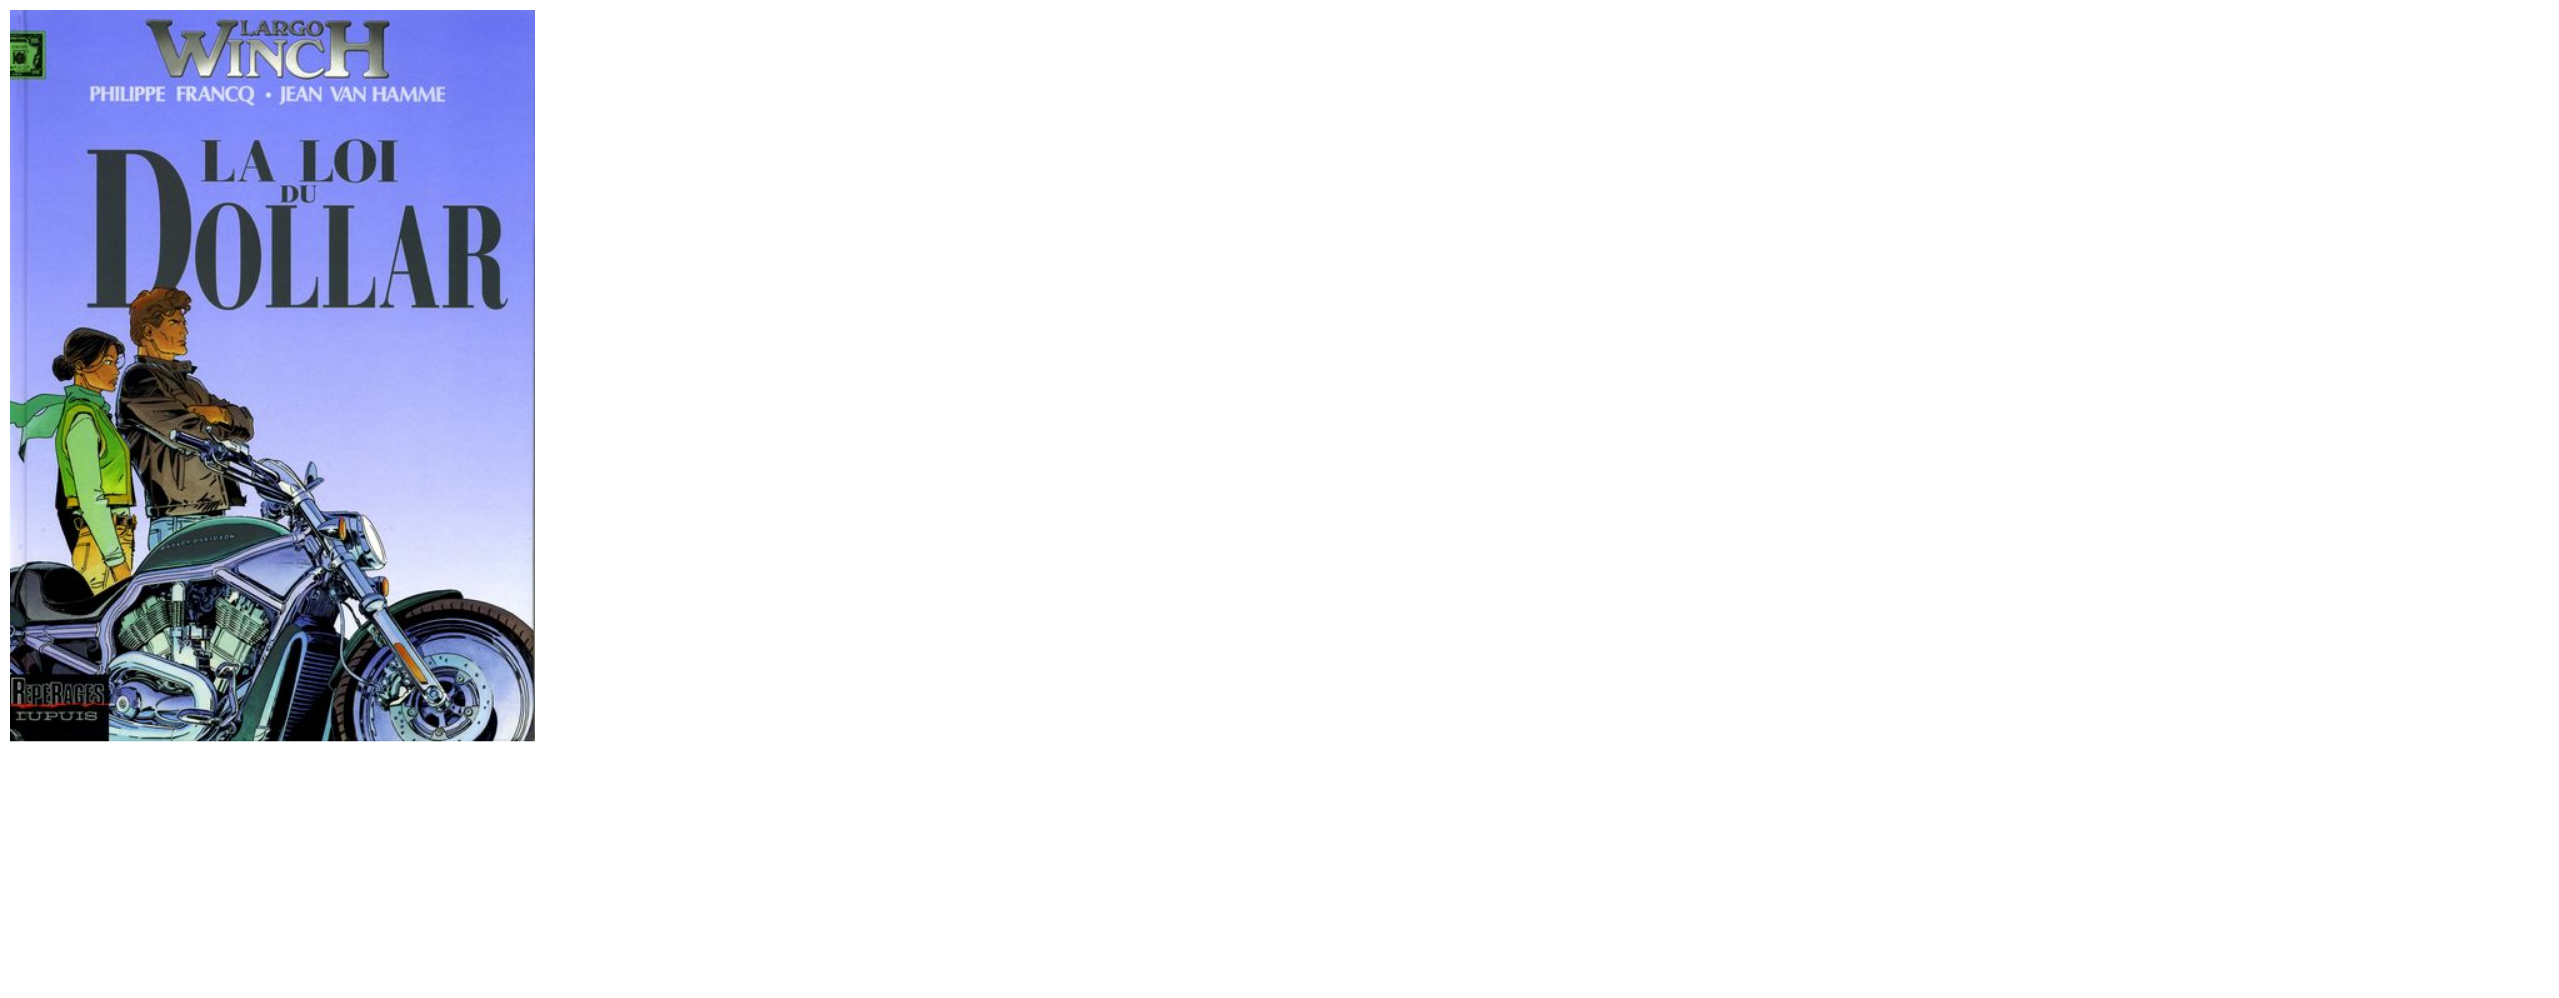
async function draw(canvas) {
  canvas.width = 2559;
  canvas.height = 998;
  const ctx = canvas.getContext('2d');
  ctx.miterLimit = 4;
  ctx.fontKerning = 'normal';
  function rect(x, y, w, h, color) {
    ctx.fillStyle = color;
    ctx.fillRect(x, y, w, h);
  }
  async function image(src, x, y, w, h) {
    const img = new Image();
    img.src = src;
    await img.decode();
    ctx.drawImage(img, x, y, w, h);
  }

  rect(0, 0, 2559, 998, '#fff');
  await image('assets/img1.png', 10, 10, 525, 732);
}

draw(document.querySelector('canvas'));
